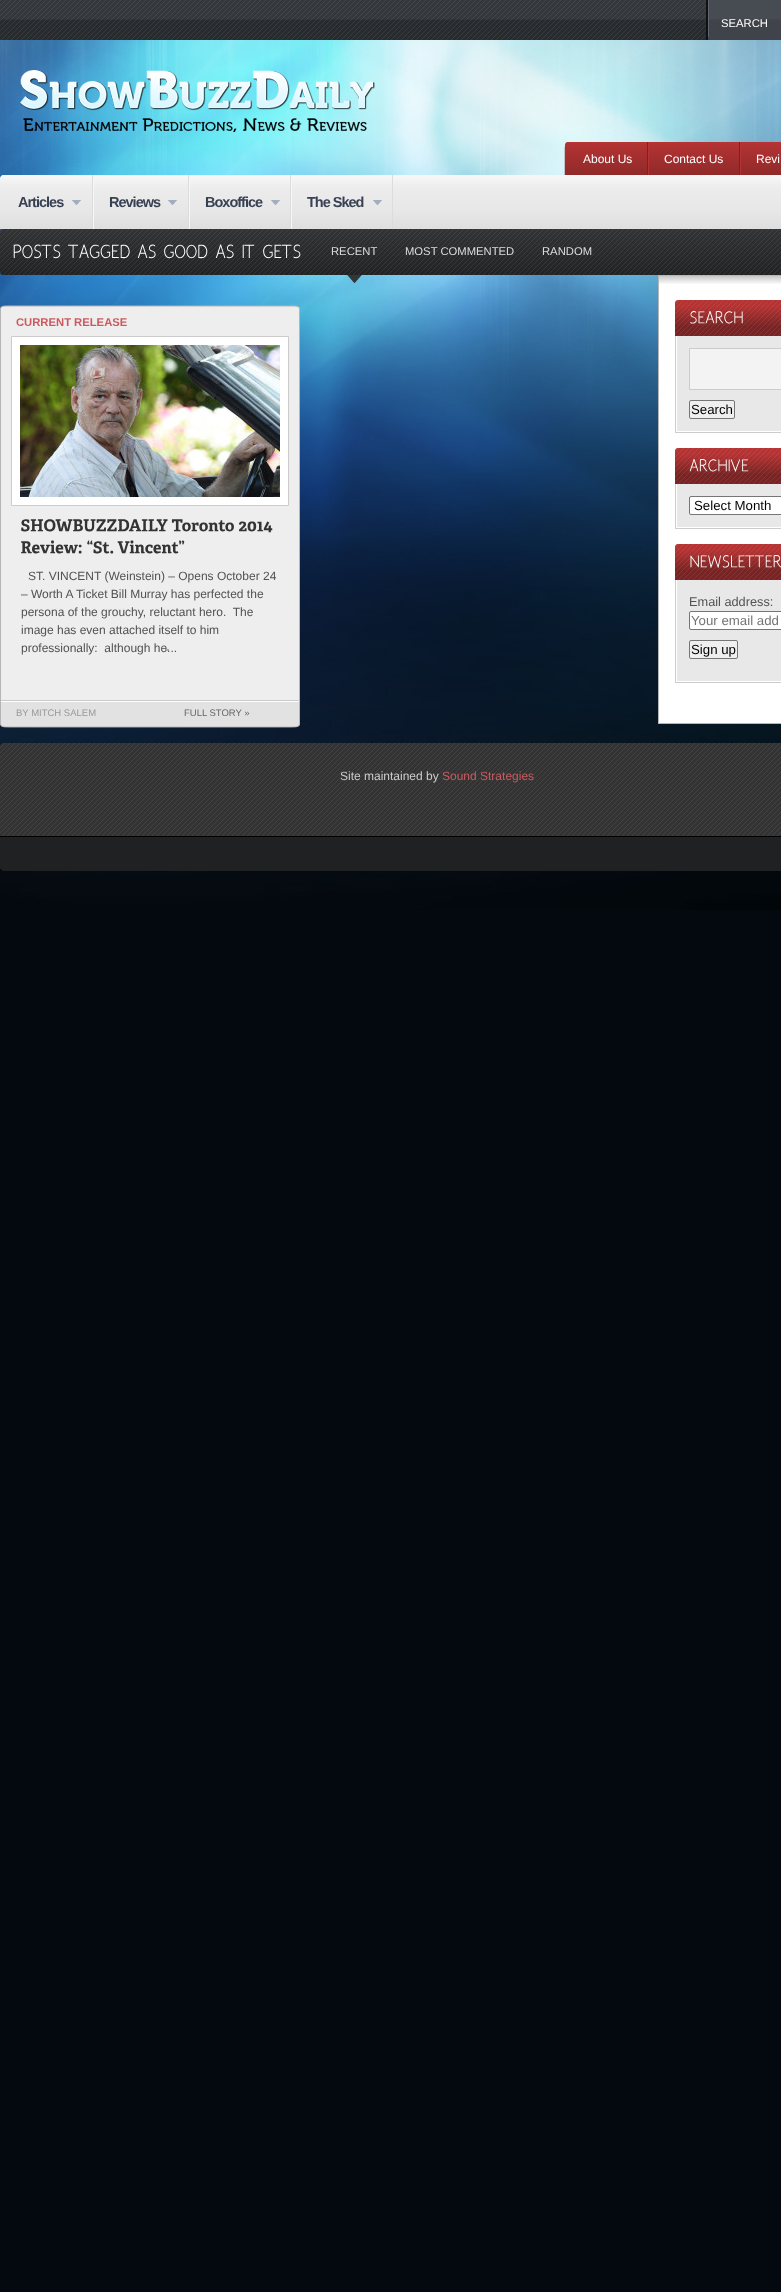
async function draw(canvas) {
  canvas.width = 781;
  canvas.height = 2292;
  const ctx = canvas.getContext('2d');
  ctx.miterLimit = 4;
  ctx.fontKerning = 'normal';
  function label(s, x, y, font, color) {
    ctx.font = font;
    ctx.fillStyle = color;
    ctx.fillText(s, x, y);
  }
  function rect(x, y, w, h, color) {
    ctx.fillStyle = color;
    ctx.fillRect(x, y, w, h);
  }
  async function image(src, x, y, w, h) {
    const img = new Image();
    img.src = src;
    await img.decode();
    ctx.drawImage(img, x, y, w, h);
  }

  rect(0, 0, 781, 2292, '#04090f');
  await image('assets/img1.png', 0, 40, 781, 870);
  await image('assets/img2.png', 0, 0, 706, 40);
  await image('assets/img3.png', 708, 0, 73, 40);
  rect(706, 0, 2, 40, '#101112');
  rect(708, 0, 1, 37, '#5f656e');
  label('SEARCH', 721, 27, '11.25px Liberation Sans', '#fff');
  await image('assets/img4.png', 20, 70, 355, 62);
  await image('assets/img6.png', 567, 142, 214, 33);
  await image('assets/img5.png', 564, 142, 4, 33);
  rect(647, 142, 1, 33, '#792424');
  label('About Us', 583, 163, '12px Liberation Sans', '#fff');
  rect(739, 142, 1, 33, '#792424');
  rect(648, 142, 1, 33, '#b53333');
  label('Contact Us', 664, 163, '12px Liberation Sans', '#fff');
  rect(740, 142, 1, 33, '#b53333');
  label('Revi', 756, 163, '12px Liberation Sans', '#fff');
  await image('assets/img8.png', 2, 175, 779, 54);
  await image('assets/img7.png', 0, 175, 3, 54);
  rect(92, 175, 1, 54, '#dcdcdc');
  ctx.letterSpacing = '-1px';
  label('Articles', 18, 207, 'bold 14.5px Liberation Sans', '#394253');
  await image('assets/img9.png', 72, 200, 9, 5);
  rect(188, 175, 1, 54, '#dcdcdc');
  rect(93, 175, 1, 54, '#f7f7f7');
  label('Reviews', 109, 207, 'bold 14.5px Liberation Sans', '#394253');
  await image('assets/img9.png', 168, 200, 9, 5);
  rect(290, 175, 1, 54, '#dcdcdc');
  rect(189, 175, 1, 54, '#f7f7f7');
  label('Boxoffice', 205, 207, 'bold 14.5px Liberation Sans', '#394253');
  await image('assets/img9.png', 271, 200, 9, 5);
  rect(392, 175, 1, 54, '#dcdcdc');
  rect(291, 175, 1, 54, '#f7f7f7');
  label('The Sked', 307, 207, 'bold 14.5px Liberation Sans', '#394253');
  await image('assets/img9.png', 373, 200, 9, 5);
  await image('assets/img10.png', 0, 229, 3, 46);
  await image('assets/img11.png', 3, 229, 778, 46);
  await image('assets/img12.png', 13, 244, 48, 15);
  await image('assets/img13.png', 68, 244, 62, 15);
  await image('assets/img14.png', 137, 244, 19, 15);
  await image('assets/img15.png', 164, 244, 44, 15);
  await image('assets/img16.png', 215, 244, 19, 15);
  await image('assets/img17.png', 242, 244, 13, 14);
  await image('assets/img18.png', 263, 244, 38, 15);
  await image('assets/img19.png', 347, 275, 15, 8);
  ctx.letterSpacing = '0px';
  label('RECENT', 331, 255, '11.25px Liberation Sans', '#ddd');
  label('MOST COMMENTED', 405, 255, '11.25px Liberation Sans', '#ddd');
  label('RANDOM', 542, 255, '11.25px Liberation Sans', '#ddd');
  await image('assets/img20.png', 0, 305, 300, 4);
  rect(1, 309, 298, 391, '#eee');
  rect(299, 309, 1, 392, '#b5b5b5');
  rect(0, 700, 300, 1, '#c9c9c9');
  rect(0, 309, 1, 392, '#b5b5b5');
  label('CURRENT RELEASE', 16, 326, 'bold 11.25px Liberation Sans', '#cb5a5f');
  ctx.fillStyle = '#fff';
  ctx.beginPath();
  ctx.rect(11.5, 336.5, 277, 169);
  ctx.fill();
  ctx.strokeStyle = '#ccc';
  ctx.stroke();
  await image('assets/img21.png', 20, 345, 260, 152);
  await image('assets/img22.png', 21, 519, 147, 13);
  await image('assets/img23.png', 171, 519, 63, 13);
  await image('assets/img24.png', 238, 521, 35, 12);
  await image('assets/img25.png', 21, 540, 61, 14);
  await image('assets/img26.png', 87, 540, 27, 14);
  await image('assets/img27.png', 117, 540, 68, 14);
  label('ST. VINCENT (Weinstein) – Opens October 24', 28, 580, '12px Liberation Sans', '#525252');
  label('– Worth A Ticket Bill Murray has perfected the', 21, 598, '12px Liberation Sans', '#525252');
  label('persona of the grouchy, reluctant hero.  The', 21, 616, '12px Liberation Sans', '#525252');
  label('image has even attached itself to him', 21, 634, '12px Liberation Sans', '#525252');
  label('professionally:  although he̵...', 21, 652, '12px Liberation Sans', '#525252');
  rect(1, 702, 298, 22, '#e2e2e2');
  rect(0, 701, 300, 1, '#fff');
  rect(299, 701, 1, 23, '#b5b5b5');
  rect(0, 701, 1, 23, '#b5b5b5');
  label('BY MITCH SALEM', 16, 716, '9.5px Liberation Sans', '#999');
  label('FULL STORY »', 184, 716, '9.5px Liberation Sans', '#666');
  await image('assets/img28.png', 0, 724, 300, 4);
  rect(659, 284, 122, 439, '#fff');
  await image('assets/img29.png', 659, 275, 122, 9);
  rect(658, 723, 123, 1, '#b5b5b5');
  rect(658, 275, 1, 449, '#b5b5b5');
  await image('assets/img30.png', 675, 300, 3, 36);
  await image('assets/img31.png', 678, 300, 103, 36);
  await image('assets/img32.png', 690, 311, 53, 13);
  rect(675, 432, 106, 1, '#ccc');
  rect(675, 336, 1, 97, '#ccc');
  rect(677, 336, 104, 95, '#e8e8e8');
  ctx.fillStyle = '#f3f3f3';
  ctx.beginPath();
  ctx.rect(689.5, 348.5, 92, 41);
  ctx.fill();
  ctx.stroke();
  ctx.fillStyle = '#efefef';
  ctx.beginPath();
  ctx.roundRect(689.5, 400.5, 45, 18, 1.5);
  ctx.fill();
  ctx.strokeStyle = '#767676';
  ctx.stroke();
  label('Search', 691, 414, '13.25px Liberation Sans', '#000');
  await image('assets/img30.png', 675, 448, 3, 36);
  await image('assets/img31.png', 678, 448, 103, 36);
  await image('assets/img33.png', 689, 459, 60, 13);
  rect(675, 528, 106, 1, '#ccc');
  rect(675, 484, 1, 45, '#ccc');
  rect(677, 484, 104, 43, '#e8e8e8');
  ctx.fillStyle = '#fff';
  ctx.beginPath();
  ctx.roundRect(689.5, 496.5, 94, 18, 1.5);
  ctx.fill();
  ctx.stroke();
  label('Select Month', 694, 510, '13.25px Liberation Sans', '#000');
  await image('assets/img30.png', 675, 544, 3, 36);
  await image('assets/img31.png', 678, 544, 103, 36);
  await image('assets/img34.png', 690, 555, 91, 13);
  rect(675, 682, 106, 1, '#ccc');
  rect(675, 580, 1, 103, '#ccc');
  rect(677, 580, 104, 101, '#e8e8e8');
  label('Email address:', 689, 606, '12.75px Liberation Sans', '#525252');
  ctx.fillStyle = '#fff';
  ctx.beginPath();
  ctx.roundRect(689.5, 611.5, 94, 18, 1.5);
  ctx.fill();
  ctx.stroke();
  label('Your email add', 691, 625, '13.25px Liberation Sans', '#757575');
  ctx.fillStyle = '#efefef';
  ctx.beginPath();
  ctx.roundRect(689.5, 640.5, 48, 18, 1.5);
  ctx.fill();
  ctx.stroke();
  label('Sign up', 691, 654, '13.25px Liberation Sans', '#000');
  await image('assets/img35.png', 0, 743, 781, 3);
  await image('assets/img36.png', 0, 746, 781, 90);
  label('Site maintained by', 340, 780, '12px Liberation Sans', '#ccc');
  label('Sound Strategies', 442, 780, '12px Liberation Sans', '#cb5a5f');
  rect(0, 837, 781, 30, '#202122');
  rect(0, 836, 781, 1, '#000');
  await image('assets/img37.png', 0, 867, 781, 4);
}

draw(document.querySelector('canvas'));
